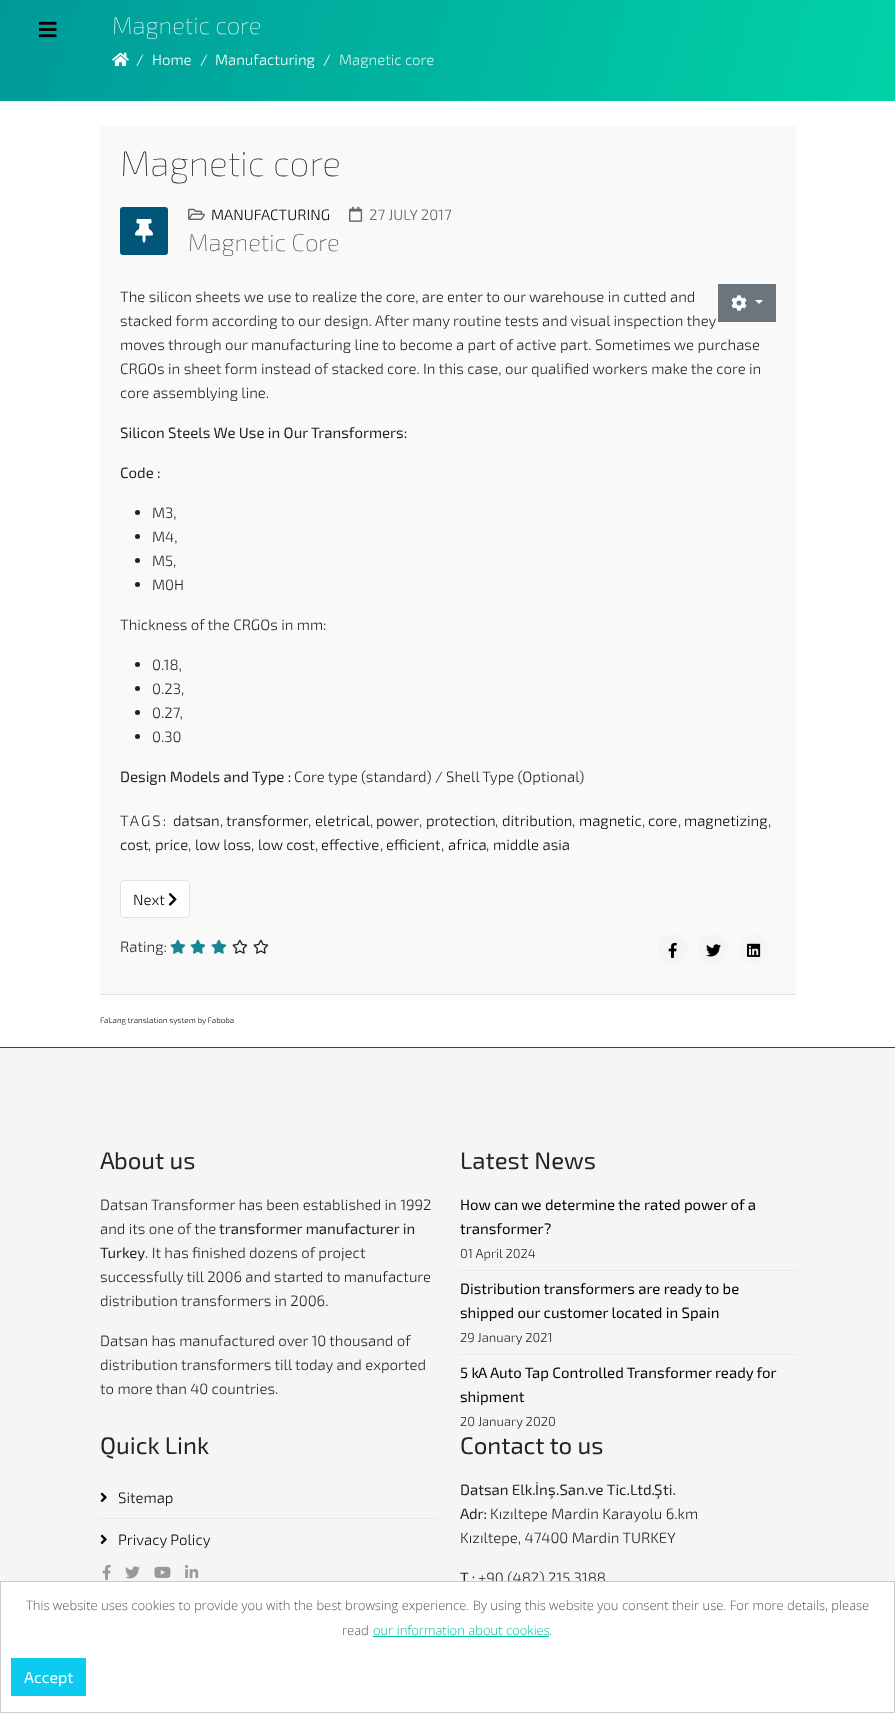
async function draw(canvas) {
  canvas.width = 895;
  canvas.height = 1713;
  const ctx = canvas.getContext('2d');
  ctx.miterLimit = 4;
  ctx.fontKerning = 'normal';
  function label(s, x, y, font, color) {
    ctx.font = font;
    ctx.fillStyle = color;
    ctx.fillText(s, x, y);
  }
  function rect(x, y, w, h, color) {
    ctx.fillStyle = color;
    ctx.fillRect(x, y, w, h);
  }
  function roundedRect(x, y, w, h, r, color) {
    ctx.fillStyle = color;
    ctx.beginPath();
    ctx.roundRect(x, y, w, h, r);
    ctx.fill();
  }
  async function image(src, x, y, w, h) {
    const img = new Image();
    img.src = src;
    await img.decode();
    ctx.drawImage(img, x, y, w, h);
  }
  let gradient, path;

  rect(0, 0, 895, 1713, '#fff');
  gradient = ctx.createLinearGradient(877, 165, 18, -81);
  gradient.addColorStop(0, '#00d3a7');
  gradient.addColorStop(1, '#099');
  ctx.fillStyle = gradient;
  ctx.fillRect(0, 0, 895, 101);
  await image('assets/img1.png', 39, 21, 18, 17);
  label('Magnetic core', 112, 34, '100 24px "Exo 2"', '#fff');
  await image('assets/img2.png', 112, 52, 17, 14);
  label('/', 136, 65, '300 15px "Exo 2"', '#fff');
  label('Home', 152, 65, '300 15px "Exo 2"', '#fff');
  label('/', 200, 65, '300 15px "Exo 2"', '#fff');
  label('Manufacturing', 215, 65, '300 15px "Exo 2"', '#fff');
  label('/', 323, 65, '300 15px "Exo 2"', '#fff');
  label('Magnetic core', 339, 65, '300 15px "Exo 2"', '#ccf0ec');
  rect(100, 126, 696, 868, '#f9f9f9');
  rect(100, 994, 696, 1, '#e0e0e0');
  label('Magnetic core', 120, 176, '100 35.5px "Exo 2"', '#212529');
  roundedRect(120, 207, 48, 48, 3, '#005578');
  await image('assets/img3.png', 135, 219, 18, 24);
  await image('assets/img4.png', 188, 208, 17, 12);
  label('MANUFACTURING', 211, 220, '300 15px "Exo 2"', '#000');
  await image('assets/img5.png', 349, 206, 14, 16);
  label('27 JULY 2017', 369, 220, '300 15px "Exo 2"', '#666');
  label('Magnetic Core', 188, 251, '100 24px "Exo 2"', '#212529');
  rect(718, 284, 58, 38, '#6c757d');
  await image('assets/img6.png', 731, 295, 16, 16);
  ctx.fillStyle = '#fff';
  path = new Path2D('M755 300H763L759 304Z');
  ctx.fill(path);
  label('The silicon sheets we use to realize the core, are enter to our warehouse in cutted and', 120, 302, '300 15px "Exo 2"', '#212529');
  label('stacked form according to our design. After many routine tests and visual inspection they', 120, 326, '300 15px "Exo 2"', '#212529');
  label('moves through our manufacturing line to become a part of active part. Sometimes we purchase', 120, 350, '300 15px "Exo 2"', '#212529');
  label('CRGOs in sheet form instead of stacked core. In this case, our qualified workers make the core in', 120, 374, '300 15px "Exo 2"', '#212529');
  label('core assemblying line.', 120, 398, '300 15px "Exo 2"', '#212529');
  label('Silicon Steels We Use in Our Transformers:', 120, 438, '15px "Exo 2"', '#212529');
  label('Code :', 120, 478, '15px "Exo 2"', '#212529');
  ctx.beginPath();
  ctx.arc(137.5, 512.5, 2.5, 0, 2 * Math.PI);
  ctx.fill();
  label('M3,', 152, 518, '300 15px "Exo 2"', '#212529');
  ctx.beginPath();
  ctx.arc(137.5, 536.5, 2.5, 0, 2 * Math.PI);
  ctx.fill();
  label('M4,', 152, 542, '300 15px "Exo 2"', '#212529');
  ctx.beginPath();
  ctx.arc(137.5, 560.5, 2.5, 0, 2 * Math.PI);
  ctx.fill();
  label('M5,', 152, 566, '300 15px "Exo 2"', '#212529');
  ctx.beginPath();
  ctx.arc(137.5, 584.5, 2.5, 0, 2 * Math.PI);
  ctx.fill();
  label('M0H', 152, 590, '300 15px "Exo 2"', '#212529');
  label('Thickness of the CRGOs in mm:', 120, 630, '300 15px "Exo 2"', '#212529');
  ctx.beginPath();
  ctx.arc(137.5, 664.5, 2.5, 0, 2 * Math.PI);
  ctx.fill();
  label('0.18,', 152, 670, '300 15px "Exo 2"', '#212529');
  ctx.beginPath();
  ctx.arc(137.5, 688.5, 2.5, 0, 2 * Math.PI);
  ctx.fill();
  label('0.23,', 152, 694, '300 15px "Exo 2"', '#212529');
  ctx.beginPath();
  ctx.arc(137.5, 712.5, 2.5, 0, 2 * Math.PI);
  ctx.fill();
  label('0.27,', 152, 718, '300 15px "Exo 2"', '#212529');
  ctx.beginPath();
  ctx.arc(137.5, 736.5, 2.5, 0, 2 * Math.PI);
  ctx.fill();
  label('0.30', 152, 742, '300 15px "Exo 2"', '#212529');
  label('Design Models and Type :', 120, 782, '15px "Exo 2"', '#212529');
  label('Core type (standard) / Shell Type (Optional)', 294, 782, '300 15px "Exo 2"', '#212529');
  ctx.letterSpacing = '2px';
  label('TAGS:', 120, 826, '300 15px "Exo 2"', '#212529');
  ctx.letterSpacing = '0px';
  label('datsan', 173, 826, '300 15px "Exo 2"', '#000');
  label(',', 220, 826, '300 15px "Exo 2"', '#212529');
  label('transformer', 226, 826, '300 15px "Exo 2"', '#000');
  label(',', 308, 826, '300 15px "Exo 2"', '#212529');
  label('eletrical', 315, 826, '300 15px "Exo 2"', '#000');
  label(',', 370, 826, '300 15px "Exo 2"', '#212529');
  label('power', 376, 826, '300 15px "Exo 2"', '#000');
  label(',', 419, 826, '300 15px "Exo 2"', '#212529');
  label('protection', 426, 826, '300 15px "Exo 2"', '#000');
  label(',', 495, 826, '300 15px "Exo 2"', '#212529');
  label('ditribution', 502, 826, '300 15px "Exo 2"', '#000');
  label(',', 572, 826, '300 15px "Exo 2"', '#212529');
  label('magnetic', 579, 826, '300 15px "Exo 2"', '#000');
  label(',', 642, 826, '300 15px "Exo 2"', '#212529');
  label('core', 648, 826, '300 15px "Exo 2"', '#000');
  label(',', 678, 826, '300 15px "Exo 2"', '#212529');
  label('magnetizing', 684, 826, '300 15px "Exo 2"', '#000');
  label(',', 768, 826, '300 15px "Exo 2"', '#212529');
  label('cost', 120, 850, '300 15px "Exo 2"', '#000');
  label(',', 148, 850, '300 15px "Exo 2"', '#212529');
  label('price', 155, 850, '300 15px "Exo 2"', '#000');
  label(',', 188, 850, '300 15px "Exo 2"', '#212529');
  label('low loss', 195, 850, '300 15px "Exo 2"', '#000');
  label(',', 251, 850, '300 15px "Exo 2"', '#212529');
  label('low cost', 258, 850, '300 15px "Exo 2"', '#000');
  label(',', 315, 850, '300 15px "Exo 2"', '#212529');
  label('effective', 321, 850, '300 15px "Exo 2"', '#000');
  label(',', 380, 850, '300 15px "Exo 2"', '#212529');
  label('efficient', 386, 850, '300 15px "Exo 2"', '#000');
  label(',', 441, 850, '300 15px "Exo 2"', '#212529');
  label('africa', 448, 850, '300 15px "Exo 2"', '#000');
  label(',', 486, 850, '300 15px "Exo 2"', '#212529');
  label('middle asia', 493, 850, '300 15px "Exo 2"', '#000');
  ctx.fillStyle = '#fff';
  ctx.beginPath();
  ctx.roundRect(120.5, 880.5, 69, 37, 3.5);
  ctx.fill();
  ctx.strokeStyle = '#dee2e6';
  ctx.stroke();
  label('Next', 133, 905, '300 15px "Exo 2"', '#000');
  await image('assets/img7.png', 168, 893, 9, 13);
  label('Rating:', 120, 952, '300 15px "Exo 2"', '#212529');
  await image('assets/img8.png', 170, 939, 16, 15);
  await image('assets/img8.png', 190, 939, 16, 15);
  await image('assets/img8.png', 211, 939, 16, 15);
  await image('assets/img9.png', 232, 939, 16, 15);
  await image('assets/img9.png', 253, 939, 16, 15);
  ctx.fillStyle = '#f5f5f5';
  ctx.beginPath();
  ctx.arc(673, 949, 15, 0, 2 * Math.PI);
  ctx.fill();
  await image('assets/img10.png', 668, 942, 9, 16);
  ctx.beginPath();
  ctx.arc(713, 949, 15, 0, 2 * Math.PI);
  ctx.fill();
  await image('assets/img11.png', 706, 944, 15, 13);
  ctx.beginPath();
  ctx.arc(754, 949, 15, 0, 2 * Math.PI);
  ctx.fill();
  await image('assets/img12.png', 747, 943, 14, 14);
  label('FaLang translation system by Faboba', 100, 1023, '300 8px "Exo 2"', '#000');
  rect(0, 1048, 895, 533, '#f5f5f5');
  rect(0, 1047, 895, 1, '#005578');
  label('A', 100, 1169, '24px "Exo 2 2"', '#212529');
  label('bout us', 114, 1169, '24px "Exo 2"', '#212529');
  label('Datsan Transformer has been established in 1992', 100, 1210, '300 15px "Exo 2"', '#212529');
  label('and its one of the', 100, 1234, '300 15px "Exo 2"', '#212529');
  label('transformer manufacturer in', 219, 1234, '15px "Exo 2"', '#212529');
  label('Turkey', 100, 1258, '15px "Exo 2"', '#212529');
  label('. It has finished dozens of project', 145, 1258, '300 15px "Exo 2"', '#212529');
  label('successfully till 2006 and started to manufacture', 100, 1282, '300 15px "Exo 2"', '#212529');
  label('distribution transformers in 2006.', 100, 1306, '300 15px "Exo 2"', '#212529');
  label('Datsan has manufactured over 10 thousand of', 100, 1346, '300 15px "Exo 2"', '#212529');
  label('distribution transformers till today and exported', 100, 1370, '300 15px "Exo 2"', '#212529');
  label('to more than 40 countries.', 100, 1394, '300 15px "Exo 2"', '#212529');
  label('Latest News', 460, 1169, '24px "Exo 2"', '#212529');
  rect(460, 1270, 336, 1, '#e8e8e8');
  label('How can we determine the rated power of a', 460, 1210, '15px "Exo 2"', '#000');
  label('transformer?', 460, 1234, '15px "Exo 2"', '#000');
  label('01 April 2024', 460, 1258, '300 13px "Exo 2"', '#212529');
  rect(460, 1354, 336, 1, '#e8e8e8');
  label('Distribution transformers are ready to be', 460, 1294, '15px "Exo 2"', '#000');
  label('shipped our customer located in Spain', 460, 1318, '15px "Exo 2"', '#000');
  label('29 January 2021', 460, 1342, '300 13px "Exo 2"', '#212529');
  label('5 k', 460, 1378, '15px "Exo 2"', '#000');
  label('A A', 478, 1378, '15px "Exo 2 2"', '#000');
  label('uto Tap Controlled Transformer ready for', 499, 1378, '15px "Exo 2"', '#000');
  label('shipment', 460, 1402, '15px "Exo 2"', '#000');
  label('20 January 2020', 460, 1426, '300 13px "Exo 2"', '#212529');
  label('Quick Link', 100, 1454, '24px "Exo 2"', '#212529');
  rect(100, 1518, 336, 1, '#e8e8e8');
  await image('assets/img13.png', 100, 1492, 7, 10);
  label('Sitemap', 118, 1503, '300 15px "Exo 2"', '#000');
  await image('assets/img13.png', 100, 1534, 7, 10);
  label('Privacy Policy', 118, 1545, '300 15px "Exo 2"', '#000');
  await image('assets/img14.png', 102, 1564, 9, 16);
  await image('assets/img15.png', 125, 1566, 15, 13);
  await image('assets/img16.png', 154, 1566, 17, 12);
  await image('assets/img17.png', 185, 1564, 14, 14);
  label('Contact to us', 460, 1454, '24px "Exo 2"', '#212529');
  label('Datsan Elk.', 460, 1495, '15px "Exo 2"', '#212529');
  label('İ', 535, 1495, '15px "Exo 2 2"', '#212529');
  label('n', 539, 1495, '15px "Exo 2"', '#212529');
  label('ş', 548, 1495, '15px "Exo 2 2"', '#212529');
  label('.San.ve Tic.Ltd.', 556, 1495, '15px "Exo 2"', '#212529');
  label('Ş', 654, 1495, '15px "Exo 2 2"', '#212529');
  label('ti.', 663, 1495, '15px "Exo 2"', '#212529');
  label('A', 460, 1519, '15px "Exo 2 2"', '#212529');
  label('dr:', 469, 1519, '15px "Exo 2"', '#212529');
  label('Kızıltepe Mardin Karayolu 6.km', 490, 1519, '300 15px "Exo 2"', '#212529');
  label('Kızıltepe, 47400 Mardin TURKEY', 460, 1543, '300 15px "Exo 2"', '#212529');
  label('T :', 460, 1583, '15px "Exo 2"', '#212529');
  label('+90 (482) 215 3188', 478, 1583, '300 15px "Exo 2"', '#212529');
  rect(463, 1582, 142, 4, '#fff');
  ctx.strokeStyle = '#ccc';
  ctx.strokeRect(0.5, 1581.5, 894, 131);
  label('This website uses cookies to provide you with the best browsing experience. By using this website you consent their use. For more details, please', 26, 1610, '300 13px Open Sans', '#555');
  label('read', 342, 1635, '300 13px Open Sans', '#555');
  label('our information about cookies', 373, 1635, '300 13px Open Sans', '#00bf9e');
  rect(373, 1636, 176, 1, '#00bf9e');
  label('.', 549, 1635, '300 13px Open Sans', '#555');
  rect(11, 1658, 75, 38, '#0dcaf0');
  label('A', 24, 1683, '16px "Exo 2 2"', '#fff');
  label('ccept', 34, 1683, '16px "Exo 2"', '#fff');
}

draw(document.querySelector('canvas'));
